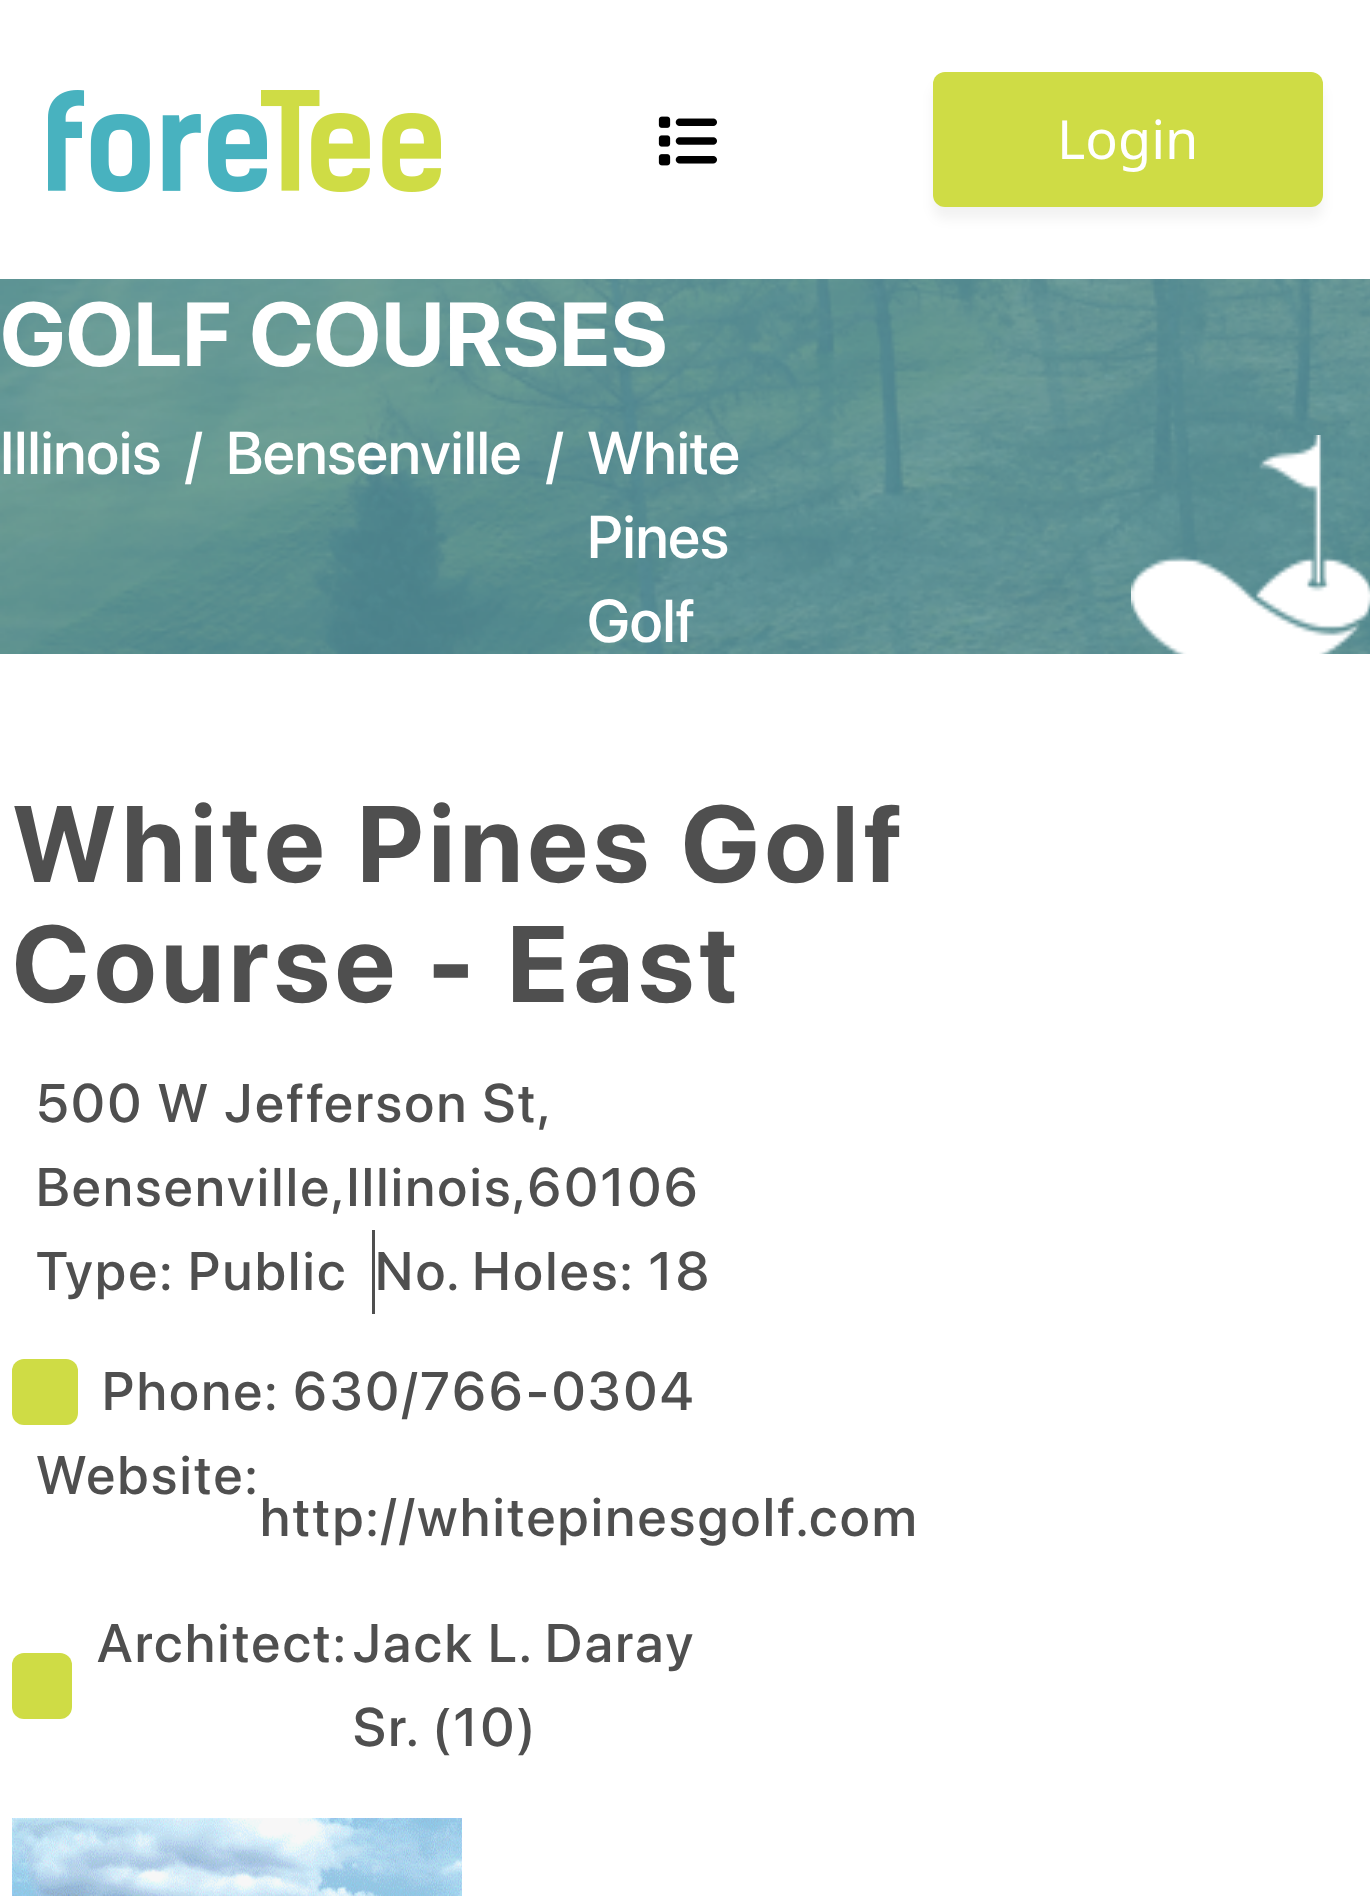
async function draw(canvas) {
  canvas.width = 1370;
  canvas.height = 1896;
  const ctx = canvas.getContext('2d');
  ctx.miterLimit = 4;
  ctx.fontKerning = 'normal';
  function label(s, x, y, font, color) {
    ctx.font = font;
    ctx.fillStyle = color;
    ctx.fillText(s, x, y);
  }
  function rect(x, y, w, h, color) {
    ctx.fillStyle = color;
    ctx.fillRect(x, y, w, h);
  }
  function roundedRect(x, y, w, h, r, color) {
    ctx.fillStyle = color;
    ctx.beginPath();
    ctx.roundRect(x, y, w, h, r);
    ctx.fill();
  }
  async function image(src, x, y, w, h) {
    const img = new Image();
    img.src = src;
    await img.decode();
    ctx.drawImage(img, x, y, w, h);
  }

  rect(0, 0, 1370, 1896, '#fff');
  await image('assets/img1.png', 48, 90, 393, 102);
  await image('assets/img2.png', 658, 116, 59, 50);
  ctx.fillStyle = '#0000000d';
  ctx.filter = 'blur(6px)';
  ctx.beginPath();
  ctx.roundRect(933, 84, 390, 135, 12);
  ctx.fill();
  ctx.filter = 'none';
  roundedRect(933, 72, 390, 135, 12, '#cfdc45');
  label('Login', 1057, 159, '54px Noto Sans', '#fff');
  await image('assets/img3.png', 0, 279, 1370, 375);
  label('GOLF COURSES', 0, 366, 'bold 90px SF Pro Display', '#fff');
  label('Illinois', 0, 474, '500 60px SF Pro Display', '#fff');
  label('/', 185, 474, '500 60px SF Pro Display', '#fff');
  label('Bensenville', 226, 474, '500 60px SF Pro Display', '#fff');
  label('/', 546, 474, '500 60px SF Pro Display', '#fff');
  label('White', 587, 474, '500 60px SF Pro Display', '#fff');
  label('Pines', 587, 558, '500 60px SF Pro Display', '#fff');
  label('Golf', 587, 642, '500 60px SF Pro Display', '#fff');
  await image('assets/img4.png', 1131, 435, 239, 219);
  ctx.letterSpacing = '5.4px';
  label('White Pines Golf', 12, 882, 'bold 108px SF Pro Display', '#4f4f4f');
  label('Course - East', 12, 1002, 'bold 108px SF Pro Display', '#4f4f4f');
  ctx.letterSpacing = '2.7px';
  label('500 W Jefferson St,', 36, 1122, '500 54px SF Pro Display', '#4f4f4f');
  label('Bensenville,Illinois,60106', 36, 1206, '500 54px SF Pro Display', '#4f4f4f');
  label('Type: Public', 36, 1290, '500 54px SF Pro Display', '#4f4f4f');
  rect(372, 1230, 3, 84, '#4f4f4f');
  label('No. Holes: 18', 375, 1290, '500 54px SF Pro Display', '#4f4f4f');
  roundedRect(12, 1359, 66, 66, 12, '#cfdc45');
  label('Phone: 630/766-0304', 102, 1410, '500 54px SF Pro Display', '#4f4f4f');
  label('Website:', 36, 1494, '500 54px SF Pro Display', '#4f4f4f');
  label('http://whitepinesgolf.com', 260, 1536, '500 54px SF Pro Display', '#4f4f4f');
  label('Architect:', 97, 1662, '500 54px SF Pro Display', '#4f4f4f');
  roundedRect(12, 1653, 60, 66, 12, '#cfdc45');
  label('Jack L. Daray', 353, 1662, '500 54px SF Pro Display', '#4f4f4f');
  label('Sr.', 353, 1746, '500 54px SF Pro Display', '#4f4f4f');
  label('(10)', 432, 1746, '500 54px SF Pro Display', '#4f4f4f');
  await image('assets/img5.png', 12, 1818, 450, 78);
}

draw(document.querySelector('canvas'));
